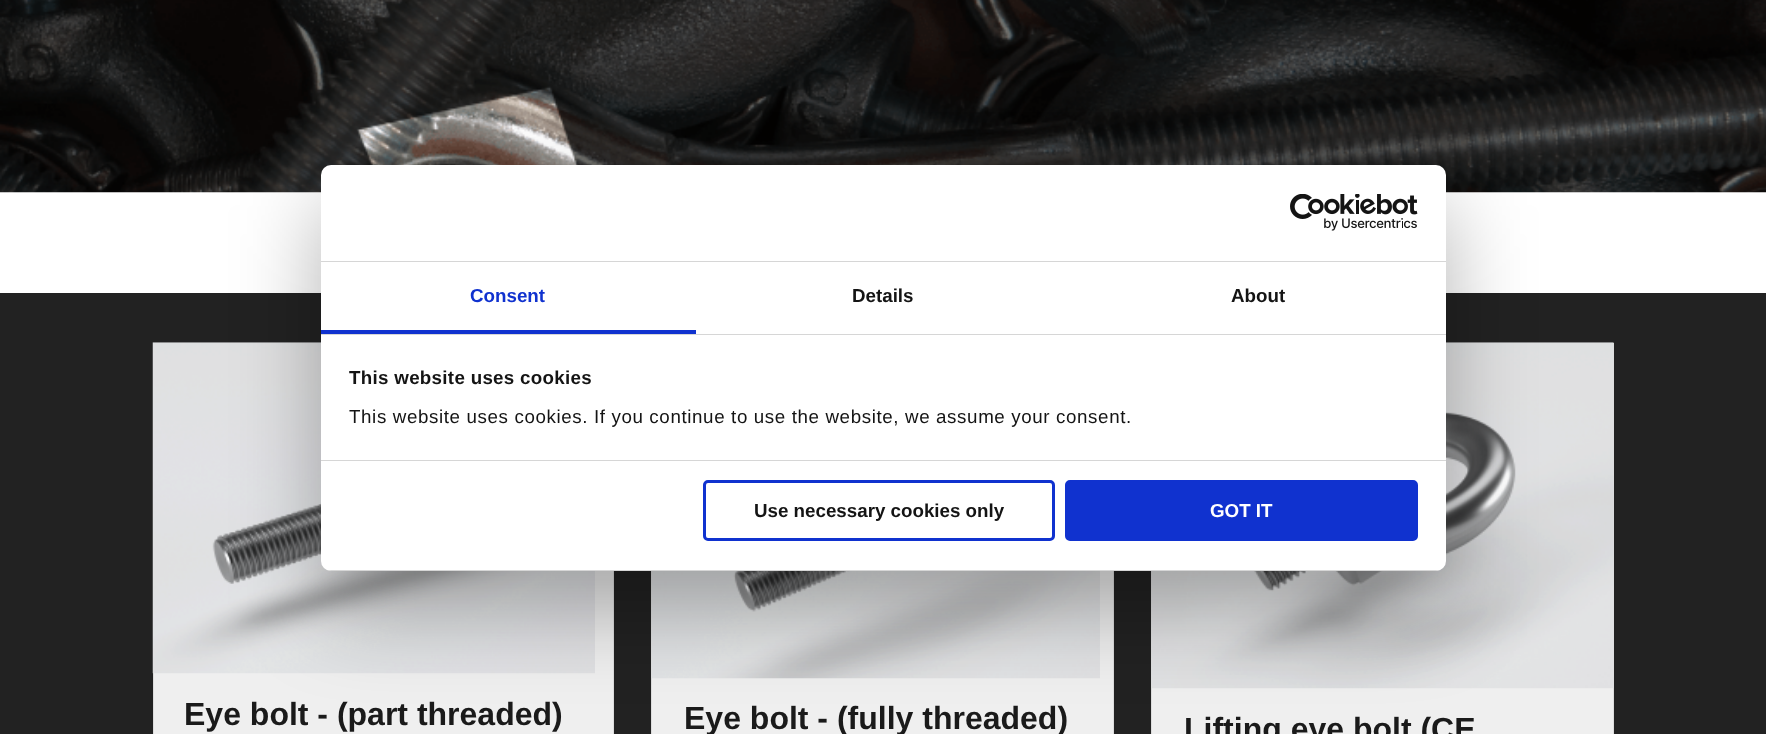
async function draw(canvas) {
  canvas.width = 1766;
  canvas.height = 734;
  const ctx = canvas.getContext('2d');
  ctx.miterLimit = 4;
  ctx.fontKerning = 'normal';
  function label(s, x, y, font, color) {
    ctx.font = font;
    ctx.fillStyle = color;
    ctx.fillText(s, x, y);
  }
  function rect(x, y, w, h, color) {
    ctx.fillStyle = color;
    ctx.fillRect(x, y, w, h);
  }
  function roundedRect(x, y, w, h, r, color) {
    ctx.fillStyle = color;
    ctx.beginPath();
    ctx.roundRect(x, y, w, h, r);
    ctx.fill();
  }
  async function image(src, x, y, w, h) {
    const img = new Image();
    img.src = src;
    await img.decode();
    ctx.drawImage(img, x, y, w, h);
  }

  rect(0, 0, 1766, 734, '#fff');
  await image('assets/img1.png', 0, 0, 1766, 193);
  rect(0, 293, 1766, 441, '#222');
  rect(154, 571, 459, 163, '#efefef');
  ctx.strokeStyle = '#ddd';
  ctx.strokeRect(153.5, 343.5, 460, 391);
  await image('assets/img3.png', 152, 342, 443, 332);
  rect(652, 571, 461, 163, '#efefef');
  ctx.strokeRect(651.5, 343.5, 462, 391);
  await image('assets/img4.png', 651, 571, 449, 108);
  rect(1152, 688, 461, 46, '#efefef');
  ctx.strokeRect(1151.5, 343.5, 462, 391);
  await image('assets/img5.png', 1151, 342, 463, 347);
  ctx.fillStyle = '#0000004d';
  ctx.filter = 'blur(42.5px)';
  ctx.beginPath();
  ctx.roundRect(321, 205, 1125, 406, 10);
  ctx.fill();
  ctx.filter = 'none';
  roundedRect(321, 165, 1125, 406, 10, '#fff');
  rect(321, 261, 1125, 1, '#d6d6d6');
  await image('assets/img2.png', 1290, 194, 128, 37);
  rect(321, 334, 1125, 1, '#d6d6d6');
  rect(321, 330, 375, 4, '#1032cf');
  label('Consent', 470, 302, 'bold 18.75px Liberation Sans', '#1032cf');
  label('Details', 852, 302, 'bold 18.75px Liberation Sans', '#141414');
  label('About', 1231, 302, 'bold 18.75px Liberation Sans', '#141414');
  rect(321, 460, 1125, 1, '#d6d6d6');
  ctx.letterSpacing = '0.3px';
  label('This website uses cookies', 349, 384, 'bold 18.75px Liberation Sans', '#141414');
  ctx.letterSpacing = '0.62px';
  label('This website uses cookies. If you continue to use the website, we assume your consent.', 349, 423, '18.75px Liberation Sans', '#141414');
  ctx.save();
  ctx.beginPath();
  ctx.roundRect(321, 165, 1125, 406, 10);
  ctx.clip();
  rect(321, 570, 1125, 1, '#d6d6d6');
  ctx.restore();
  ctx.beginPath();
  ctx.roundRect(704.5, 481.5, 349, 58, 3.5);
  ctx.strokeStyle = '#1032cf';
  ctx.lineWidth = 3;
  ctx.stroke();
  ctx.letterSpacing = '0px';
  label('Use necessary cookies only', 754, 517, 'bold 18.75px Liberation Sans', '#141414');
  ctx.fillStyle = '#1032cf';
  ctx.beginPath();
  ctx.roundRect(1066.5, 481.5, 350, 58, 3.5);
  ctx.fill();
  ctx.stroke();
  label('GOT IT', 1210, 517, 'bold 18.75px Liberation Sans', '#fff');
  label('Eye bolt - (part threaded)', 184, 725, 'bold 32px Liberation Sans', '#1a1a1a');
  label('Eye bolt - (fully threaded)', 684, 729, 'bold 32px Liberation Sans', '#1a1a1a');
  label('Lifting eye bolt (CE', 1184, 740, 'bold 32px Liberation Sans', '#1a1a1a');
}

draw(document.querySelector('canvas'));
